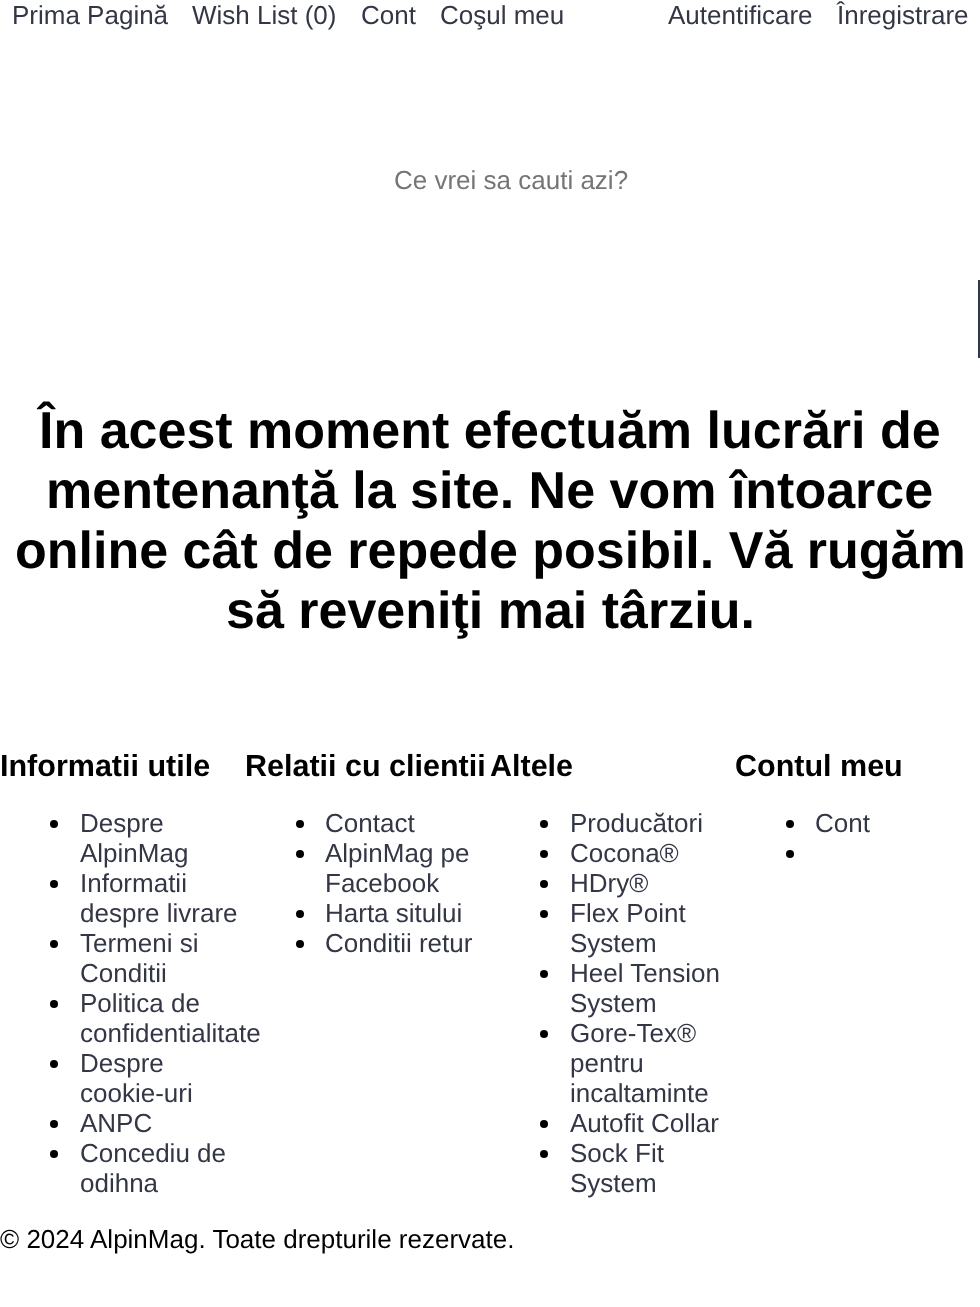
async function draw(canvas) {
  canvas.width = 980;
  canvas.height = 1307;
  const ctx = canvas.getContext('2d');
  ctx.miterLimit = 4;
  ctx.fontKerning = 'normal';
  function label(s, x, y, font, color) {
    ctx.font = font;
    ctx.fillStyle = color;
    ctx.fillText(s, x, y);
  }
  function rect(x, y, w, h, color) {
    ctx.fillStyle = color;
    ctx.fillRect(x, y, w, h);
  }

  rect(0, 0, 980, 1307, '#fff');
  label('Prima Pagină', 12, 24, '26px Liberation Sans', '#333745');
  label('Wish List (0)', 192, 24, '26px Liberation Sans', '#333745');
  label('Cont', 361, 24, '26px Liberation Sans', '#333745');
  label('Coşul meu', 440, 24, '26px Liberation Sans', '#333745');
  label('Autentificare', 668, 24, '26px Liberation Sans', '#333745');
  label('Înregistrare', 837, 24, '26px Liberation Sans', '#333745');
  label('Ce vrei sa cauti azi?', 394, 189, '26px Liberation Sans', '#757575');
  rect(978, 280, 2, 78, '#333745');
  label('În acest moment efectuăm lucrări de', 39, 448, 'bold 52px Liberation Sans', '#000');
  label('mentenanţă la site. Ne vom întoarce', 46, 508, 'bold 52px Liberation Sans', '#000');
  label('online cât de repede posibil. Vă rugăm', 15, 568, 'bold 52px Liberation Sans', '#000');
  label('să reveniţi mai târziu.', 226, 628, 'bold 52px Liberation Sans', '#000');
  label('Informatii utile', 0, 776, 'bold 30.5px Liberation Sans', '#000');
  ctx.beginPath();
  ctx.arc(54, 824, 4, 0, 2 * Math.PI);
  ctx.fill();
  label('Despre', 80, 832, '26px Liberation Sans', '#333745');
  label('AlpinMag', 80, 862, '26px Liberation Sans', '#333745');
  ctx.fillStyle = '#000';
  ctx.beginPath();
  ctx.arc(54, 884, 4, 0, 2 * Math.PI);
  ctx.fill();
  label('Informatii', 80, 892, '26px Liberation Sans', '#333745');
  label('despre livrare', 80, 922, '26px Liberation Sans', '#333745');
  ctx.fillStyle = '#000';
  ctx.beginPath();
  ctx.arc(54, 944, 4, 0, 2 * Math.PI);
  ctx.fill();
  label('Termeni si', 80, 952, '26px Liberation Sans', '#333745');
  label('Conditii', 80, 982, '26px Liberation Sans', '#333745');
  ctx.fillStyle = '#000';
  ctx.beginPath();
  ctx.arc(54, 1004, 4, 0, 2 * Math.PI);
  ctx.fill();
  label('Politica de', 80, 1012, '26px Liberation Sans', '#333745');
  label('confidentialitate', 80, 1042, '26px Liberation Sans', '#333745');
  ctx.fillStyle = '#000';
  ctx.beginPath();
  ctx.arc(54, 1064, 4, 0, 2 * Math.PI);
  ctx.fill();
  label('Despre', 80, 1072, '26px Liberation Sans', '#333745');
  label('cookie-uri', 80, 1102, '26px Liberation Sans', '#333745');
  ctx.fillStyle = '#000';
  ctx.beginPath();
  ctx.arc(54, 1124, 4, 0, 2 * Math.PI);
  ctx.fill();
  label('ANPC', 80, 1132, '26px Liberation Sans', '#333745');
  ctx.fillStyle = '#000';
  ctx.beginPath();
  ctx.arc(54, 1154, 4, 0, 2 * Math.PI);
  ctx.fill();
  label('Concediu de', 80, 1162, '26px Liberation Sans', '#333745');
  label('odihna', 80, 1192, '26px Liberation Sans', '#333745');
  label('Relatii cu clientii', 245, 776, 'bold 30.5px Liberation Sans', '#000');
  ctx.beginPath();
  ctx.arc(300, 824, 4, 0, 2 * Math.PI);
  ctx.fill();
  label('Contact', 325, 832, '26px Liberation Sans', '#333745');
  ctx.fillStyle = '#000';
  ctx.beginPath();
  ctx.arc(300, 854, 4, 0, 2 * Math.PI);
  ctx.fill();
  label('AlpinMag pe', 325, 862, '26px Liberation Sans', '#333745');
  label('Facebook', 325, 892, '26px Liberation Sans', '#333745');
  ctx.fillStyle = '#000';
  ctx.beginPath();
  ctx.arc(300, 914, 4, 0, 2 * Math.PI);
  ctx.fill();
  label('Harta sitului', 325, 922, '26px Liberation Sans', '#333745');
  ctx.fillStyle = '#000';
  ctx.beginPath();
  ctx.arc(300, 944, 4, 0, 2 * Math.PI);
  ctx.fill();
  label('Conditii retur', 325, 952, '26px Liberation Sans', '#333745');
  label('Altele', 490, 776, 'bold 30.5px Liberation Sans', '#000');
  ctx.beginPath();
  ctx.arc(544, 824, 4, 0, 2 * Math.PI);
  ctx.fill();
  label('Producători', 570, 832, '26px Liberation Sans', '#333745');
  ctx.fillStyle = '#000';
  ctx.beginPath();
  ctx.arc(544, 854, 4, 0, 2 * Math.PI);
  ctx.fill();
  label('Cocona®', 570, 862, '26px Liberation Sans', '#333745');
  ctx.fillStyle = '#000';
  ctx.beginPath();
  ctx.arc(544, 884, 4, 0, 2 * Math.PI);
  ctx.fill();
  label('HDry®', 570, 892, '26px Liberation Sans', '#333745');
  ctx.fillStyle = '#000';
  ctx.beginPath();
  ctx.arc(544, 914, 4, 0, 2 * Math.PI);
  ctx.fill();
  label('Flex Point', 570, 922, '26px Liberation Sans', '#333745');
  label('System', 570, 952, '26px Liberation Sans', '#333745');
  ctx.fillStyle = '#000';
  ctx.beginPath();
  ctx.arc(544, 974, 4, 0, 2 * Math.PI);
  ctx.fill();
  label('Heel Tension', 570, 982, '26px Liberation Sans', '#333745');
  label('System', 570, 1012, '26px Liberation Sans', '#333745');
  ctx.fillStyle = '#000';
  ctx.beginPath();
  ctx.arc(544, 1034, 4, 0, 2 * Math.PI);
  ctx.fill();
  label('Gore-Tex®', 570, 1042, '26px Liberation Sans', '#333745');
  label('pentru', 570, 1072, '26px Liberation Sans', '#333745');
  label('incaltaminte', 570, 1102, '26px Liberation Sans', '#333745');
  ctx.fillStyle = '#000';
  ctx.beginPath();
  ctx.arc(544, 1124, 4, 0, 2 * Math.PI);
  ctx.fill();
  label('Autofit Collar', 570, 1132, '26px Liberation Sans', '#333745');
  ctx.fillStyle = '#000';
  ctx.beginPath();
  ctx.arc(544, 1154, 4, 0, 2 * Math.PI);
  ctx.fill();
  label('Sock Fit', 570, 1162, '26px Liberation Sans', '#333745');
  label('System', 570, 1192, '26px Liberation Sans', '#333745');
  label('Contul meu', 735, 776, 'bold 30.5px Liberation Sans', '#000');
  ctx.beginPath();
  ctx.arc(790, 824, 4, 0, 2 * Math.PI);
  ctx.fill();
  label('Cont', 815, 832, '26px Liberation Sans', '#333745');
  ctx.fillStyle = '#000';
  ctx.beginPath();
  ctx.arc(790, 854, 4, 0, 2 * Math.PI);
  ctx.fill();
  label('© 2024 AlpinMag. Toate drepturile rezervate.', 0, 1248, '26px Liberation Sans', '#000');
}

draw(document.querySelector('canvas'));
